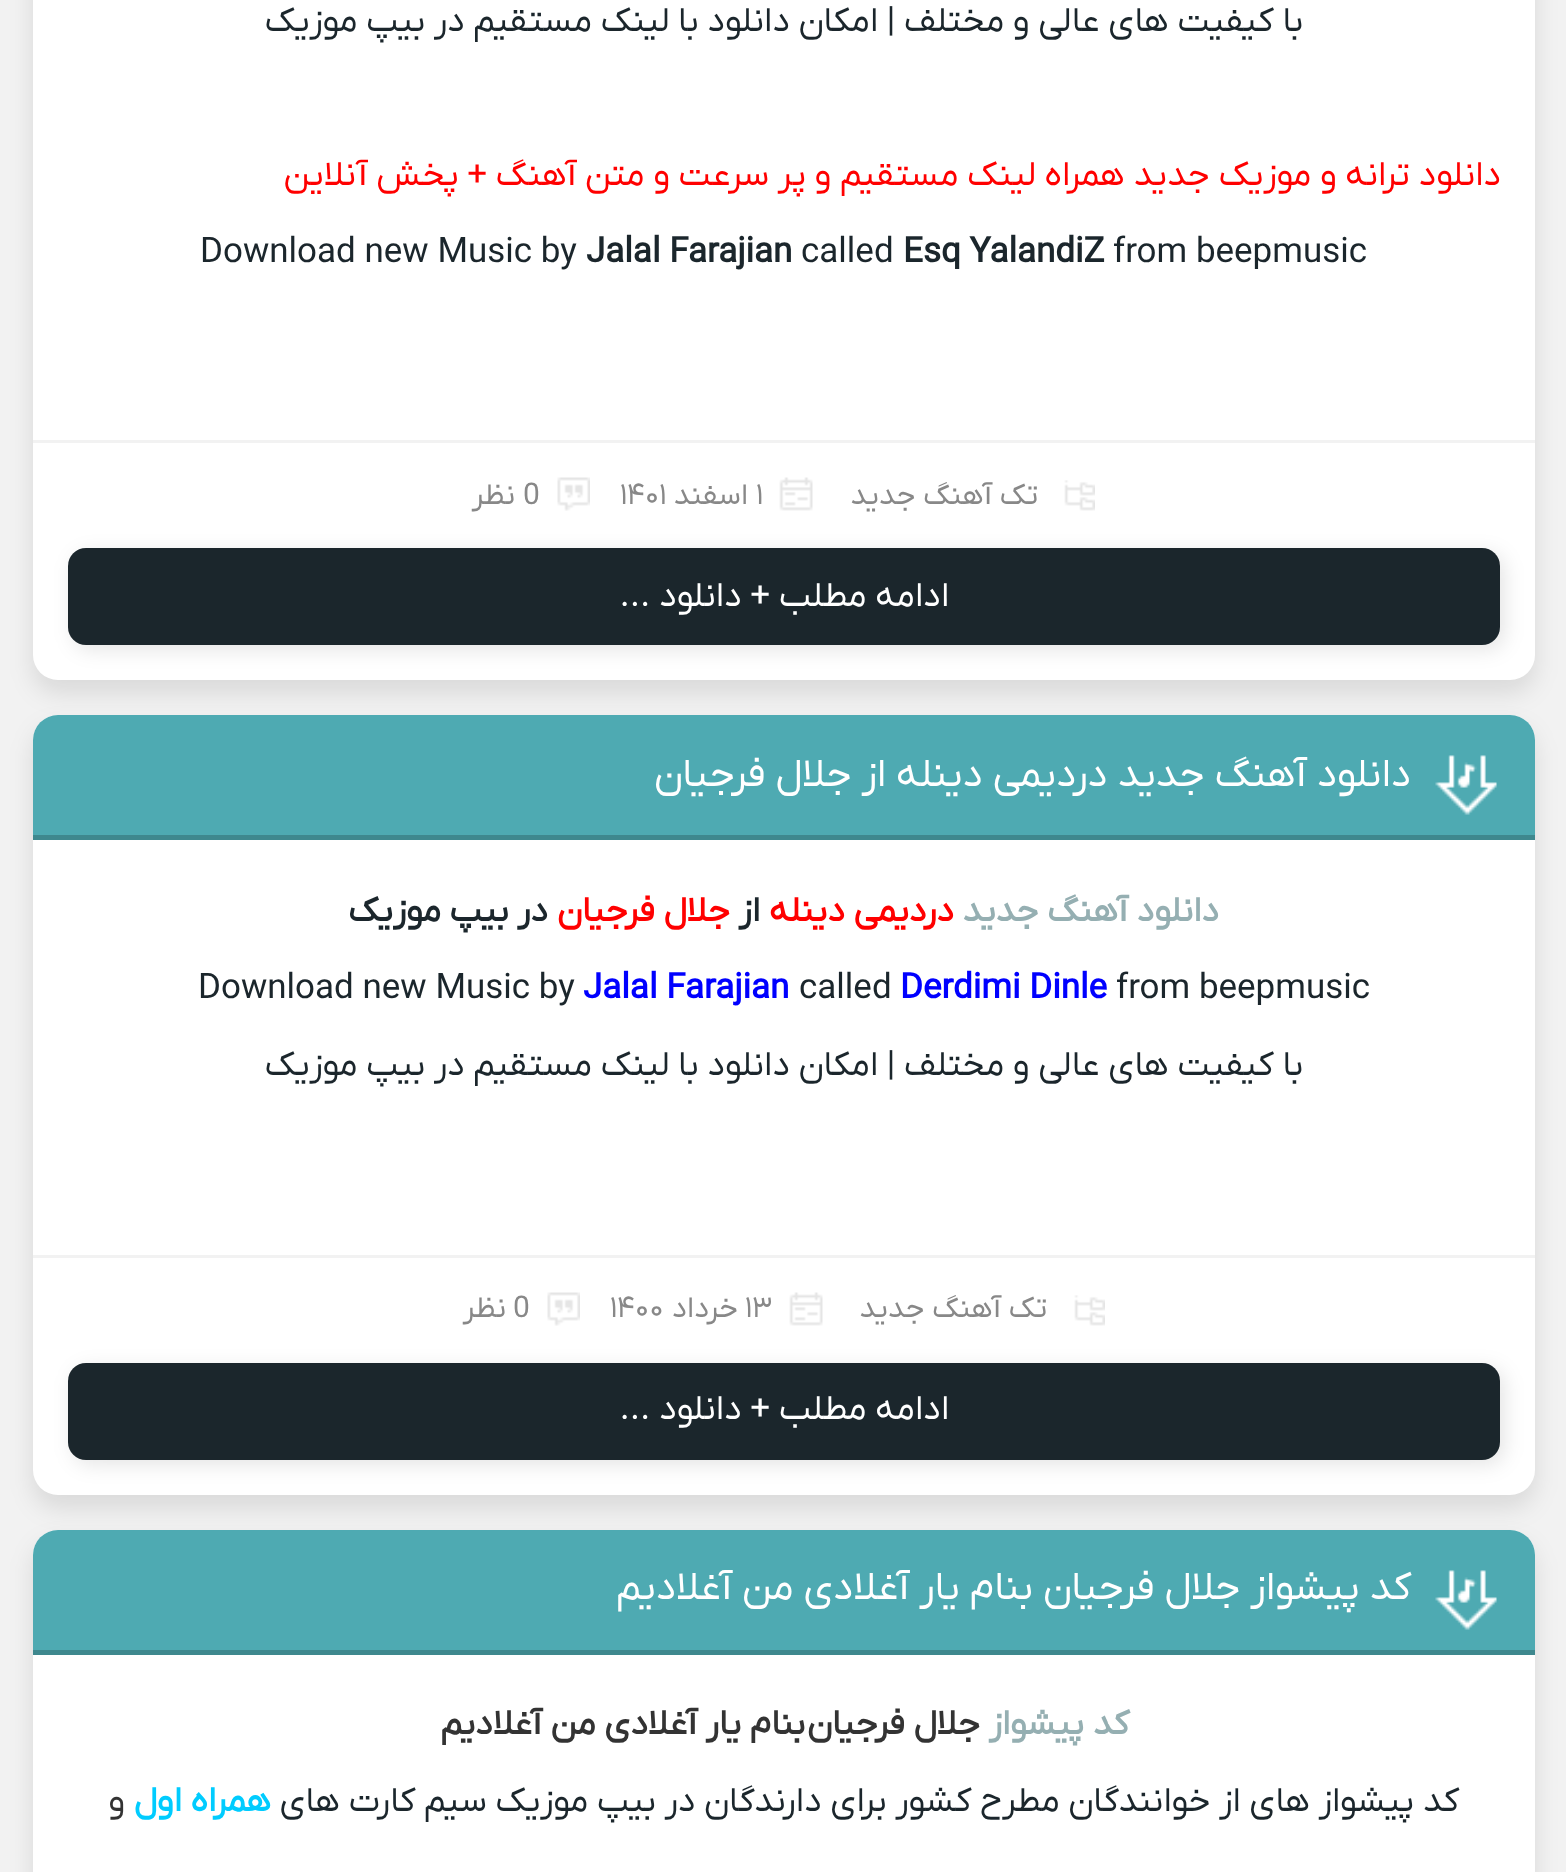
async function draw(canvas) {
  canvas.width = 1566;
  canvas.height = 1872;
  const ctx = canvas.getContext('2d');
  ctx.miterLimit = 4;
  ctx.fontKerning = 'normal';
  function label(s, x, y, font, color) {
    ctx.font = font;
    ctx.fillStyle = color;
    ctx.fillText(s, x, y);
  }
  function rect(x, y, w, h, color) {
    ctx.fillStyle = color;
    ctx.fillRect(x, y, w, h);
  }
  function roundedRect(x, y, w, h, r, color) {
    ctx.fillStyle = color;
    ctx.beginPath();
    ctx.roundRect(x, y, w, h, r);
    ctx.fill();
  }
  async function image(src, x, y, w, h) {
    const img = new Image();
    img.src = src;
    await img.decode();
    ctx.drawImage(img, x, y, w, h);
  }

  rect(0, 0, 1566, 1872, '#f2f2f2');
  ctx.fillStyle = '#0000001a';
  ctx.filter = 'blur(12.5px)';
  ctx.beginPath();
  ctx.roundRect(33, -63, 1502, 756, 25);
  ctx.fill();
  ctx.filter = 'none';
  roundedRect(33, -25, 1502, 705, 25, '#fff');
  ctx.direction = 'rtl';
  label('با کیفیت ‌های عالی و مختلف | امکان دانلود با لینک مستقیم در بیپ موزیک', 1303, 31, '35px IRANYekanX', '#1b262c');
  label('دانلود ترانه و موزیک جدید همراه لینک مستقیم و پر سرعت و متن آهنگ + پخش آنلاین', 1501, 185, '35px IRANYekanX', '#f00');
  ctx.direction = 'ltr';
  label('from beepmusic', 1113, 262, '35px IRANYekanX', '#1b262c');
  label('Esq YalandiZ', 903, 262, 'bold 35px IRANYekanX', '#1b262c');
  label('called', 801, 262, '35px IRANYekanX', '#1b262c');
  label('Jalal Farajian', 586, 262, 'bold 35px IRANYekanX', '#1b262c');
  label('Download new Music by', 200, 262, '35px IRANYekanX', '#1b262c');
  rect(33, 440, 1502, 3, '#f2f2f2');
  await image('assets/img1.png', 1064, 480, 31, 31);
  ctx.direction = 'rtl';
  label('تک آهنگ جدید', 1038, 504, '30px IRANYekanX', '#888');
  await image('assets/img2.png', 779, 477, 34, 34);
  ctx.direction = 'ltr';
  label('۱', 756, 504, '30px IRANYekanX', '#888');
  ctx.direction = 'rtl';
  label('اسفند', 748, 504, '30px IRANYekanX', '#888');
  ctx.direction = 'ltr';
  label('۱۴۰۱', 620, 504, '30px IRANYekanX', '#888');
  await image('assets/img3.png', 557, 477, 33, 34);
  label('0', 523, 504, '30px IRANYekanX', '#888');
  ctx.direction = 'rtl';
  label('نظر', 515, 504, '30px IRANYekanX', '#888');
  ctx.fillStyle = '#0000001a';
  ctx.filter = 'blur(10px)';
  ctx.beginPath();
  ctx.roundRect(73, 553, 1432, 97, 18);
  ctx.fill();
  ctx.filter = 'none';
  roundedRect(68, 548, 1432, 97, 18, '#1b262c');
  label('ادامه مطلب + دانلود ...', 949, 606, '35px IRANYekanX', '#fff');
  ctx.fillStyle = '#0000001a';
  ctx.filter = 'blur(12.5px)';
  ctx.beginPath();
  ctx.roundRect(33, 728, 1502, 780, 25);
  ctx.fill();
  ctx.filter = 'none';
  roundedRect(33, 715, 1502, 780, 25, '#fff');
  ctx.fillStyle = '#4eaab2';
  ctx.beginPath();
  ctx.roundRect(33, 715, 1502, 125, [25, 25, 0, 0]);
  ctx.fill();
  rect(33, 835, 1502, 5, '#3e888e');
  await image('assets/img4.png', 1435, 755, 62, 60);
  label('دانلود آهنگ جدید دردیمی دینله از جلال فرجیان', 1411, 786, '40px IRANYekanX', '#fff');
  label('دانلود آهنگ جدید', 1219, 921, 'bold 35px IRANYekanX', '#95afb2');
  label('دردیمی دینله', 954, 921, 'bold 35px IRANYekanX', '#f00');
  label('از', 760, 921, 'bold 35px IRANYekanX', '#1b262c');
  label('جلال فرجیان', 730, 921, 'bold 35px IRANYekanX', '#f00');
  label('در بیپ موزیک', 548, 921, 'bold 35px IRANYekanX', '#1b262c');
  ctx.direction = 'ltr';
  label('from beepmusic', 1116, 998, '35px IRANYekanX', '#1b262c');
  label('Derdimi Dinle', 900, 998, 'bold 35px IRANYekanX', '#00f');
  label('called', 799, 998, '35px IRANYekanX', '#1b262c');
  label('Jalal Farajian', 583, 998, 'bold 35px IRANYekanX', '#00f');
  label('Download new Music by', 198, 998, '35px IRANYekanX', '#1b262c');
  ctx.direction = 'rtl';
  label('با کیفیت ‌های عالی و مختلف | امکان دانلود با لینک مستقیم در بیپ موزیک', 1303, 1075, '35px IRANYekanX', '#1b262c');
  rect(33, 1255, 1502, 3, '#f2f2f2');
  await image('assets/img1.png', 1074, 1295, 31, 31);
  label('تک آهنگ جدید', 1047, 1317, '30px IRANYekanX', '#888');
  await image('assets/img5.png', 789, 1292, 34, 34);
  ctx.direction = 'ltr';
  label('۱۳', 745, 1317, '30px IRANYekanX', '#888');
  ctx.direction = 'rtl';
  label('خرداد', 738, 1317, '30px IRANYekanX', '#888');
  ctx.direction = 'ltr';
  label('۱۴۰۰', 610, 1317, '30px IRANYekanX', '#888');
  await image('assets/img6.png', 547, 1292, 33, 34);
  label('0', 513, 1317, '30px IRANYekanX', '#888');
  ctx.direction = 'rtl';
  label('نظر', 506, 1317, '30px IRANYekanX', '#888');
  ctx.fillStyle = '#0000001a';
  ctx.filter = 'blur(10px)';
  ctx.beginPath();
  ctx.roundRect(73, 1368, 1432, 97, 18);
  ctx.fill();
  ctx.filter = 'none';
  roundedRect(68, 1363, 1432, 97, 18, '#1b262c');
  label('ادامه مطلب + دانلود ...', 949, 1419, '35px IRANYekanX', '#fff');
  ctx.fillStyle = '#0000001a';
  ctx.filter = 'blur(12.5px)';
  ctx.beginPath();
  ctx.roundRect(33, 1543, 1502, 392, 25);
  ctx.fill();
  ctx.filter = 'none';
  roundedRect(33, 1530, 1502, 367, 25, '#fff');
  ctx.fillStyle = '#4eaab2';
  ctx.beginPath();
  ctx.roundRect(33, 1530, 1502, 125, [25, 25, 0, 0]);
  ctx.fill();
  rect(33, 1650, 1502, 5, '#3e888e');
  await image('assets/img4.png', 1435, 1570, 62, 60);
  label('کد پیشواز جلال فرجیان بنام یار آغلادی من آغلادیم', 1411, 1599, '40px IRANYekanX', '#fff');
  label('کد پیشواز', 1129, 1734, 'bold 35px IRANYekanX', '#95afb2');
  label('جلال فرجیان', 980, 1734, 'bold 35px IRANYekanX', '#333');
  label('بنام یار آغلادی من آغلادیم', 805, 1734, 'bold 35px IRANYekanX', '#333');
  label('کد پیشواز های از خوانندگان مطرح کشور برای دارندگان در بیپ موزیک سیم کارت های', 1459, 1811, '35px IRANYekanX', '#1b262c');
  label('همراه اول', 271, 1811, 'bold 35px IRANYekanX', '#0cf');
  label('و', 125, 1811, '35px IRANYekanX', '#333');
}

draw(document.querySelector('canvas'));
